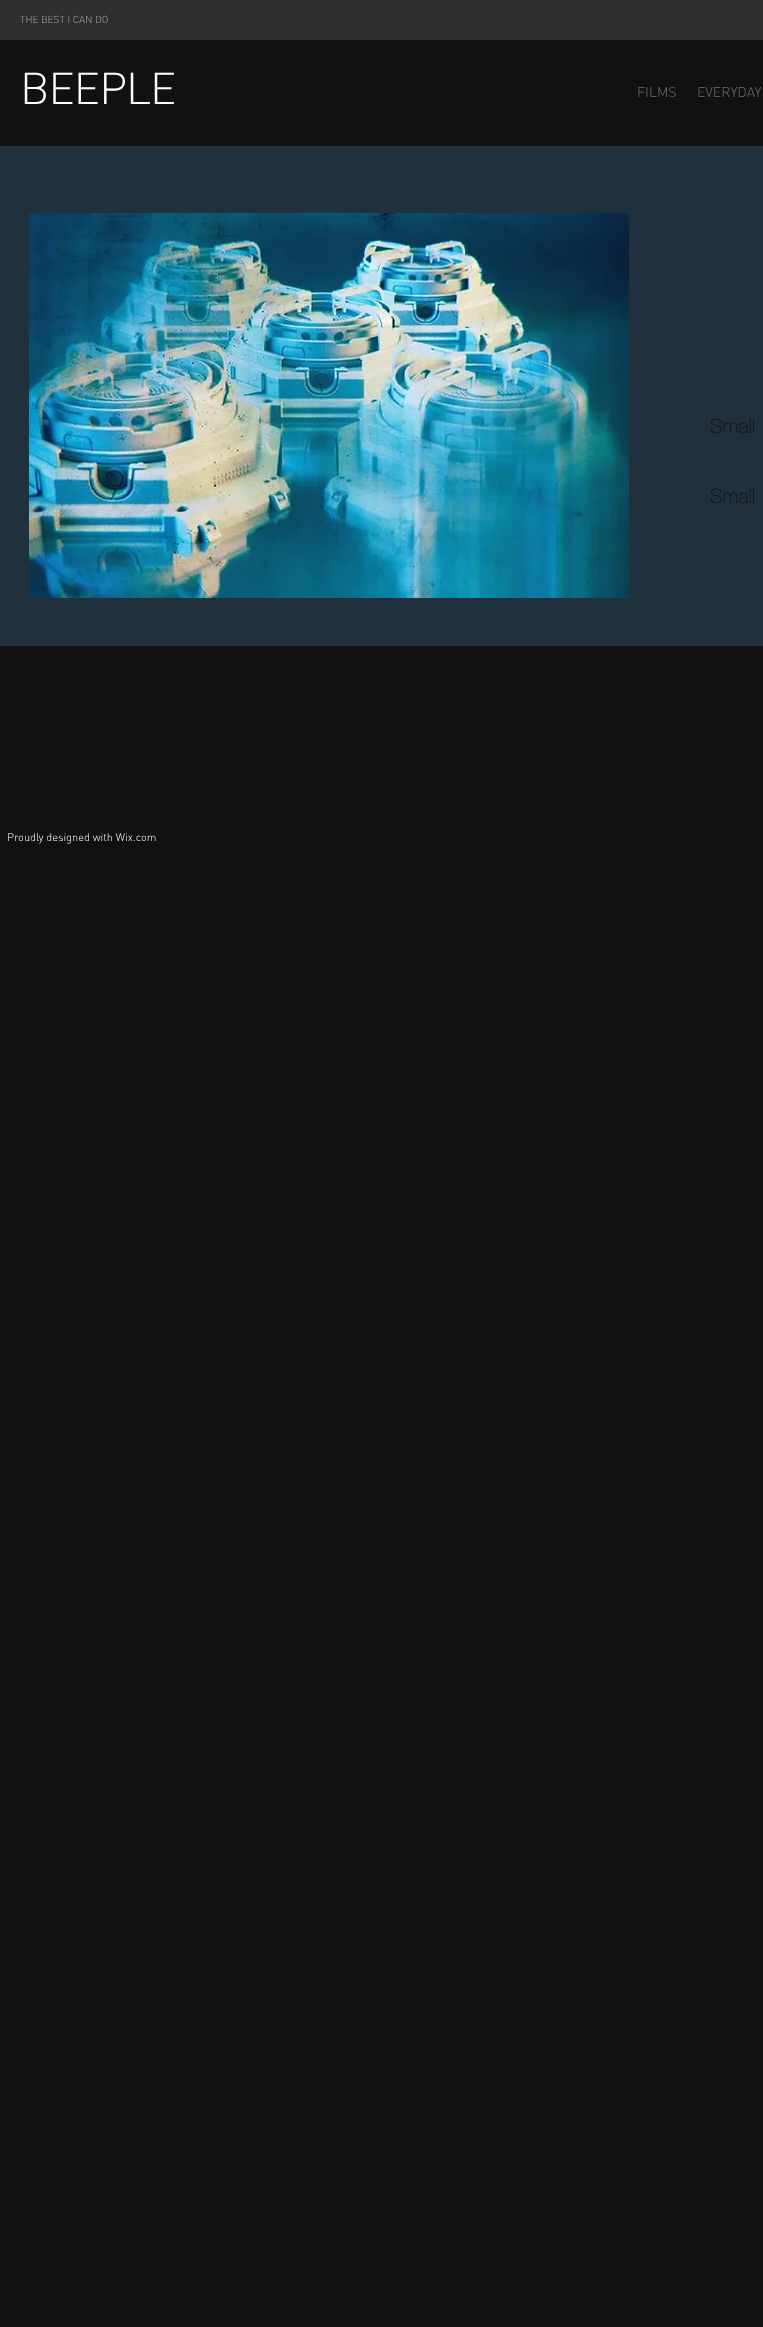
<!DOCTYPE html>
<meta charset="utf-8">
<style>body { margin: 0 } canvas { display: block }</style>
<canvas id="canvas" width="763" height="2327"></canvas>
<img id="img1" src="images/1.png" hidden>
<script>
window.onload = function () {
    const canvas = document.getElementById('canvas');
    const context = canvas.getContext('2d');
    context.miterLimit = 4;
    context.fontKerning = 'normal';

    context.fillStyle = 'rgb(17, 17, 17)';
    context.fillRect(0, 0, 763, 2327);
    context.fillStyle = 'rgb(47, 46, 46)';
    context.fillRect(0, 0, 763, 40);
    context.fillStyle = 'rgb(32, 48, 60)';
    context.fillRect(0, 146, 763, 500);
    context.drawImage(document.getElementById('img1'), 29, 213, 600, 385);
    context.font = '300 10px DIN';
    context.fillStyle = 'rgb(163, 171, 176)';
    context.fillText('THE BEST I CAN DO', 20, 23);
    context.letterSpacing = '-1px';
    context.font = '300 44px DIN';
    context.fillStyle = 'rgb(255, 255, 255)';
    context.fillText('BEEPLE', 20, 104);
    context.letterSpacing = '0px';
    context.font = '300 14px DIN';
    context.fillStyle = 'rgb(102, 115, 124)';
    context.fillText('FILMS', 637, 97);
    context.fillText('EVERYDAY', 697, 97);
    context.font = '100 20px "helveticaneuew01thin"';
    context.fillStyle = 'rgb(17, 17, 17)';
    context.fillText('Small', 710, 433);
    context.fillText('Small', 710, 503);
    context.font = '300 11px DIN';
    context.fillStyle = 'rgb(255, 255, 255)';
    context.fillText('Proudly designed with Wix.com', 7, 841);
};
</script>
